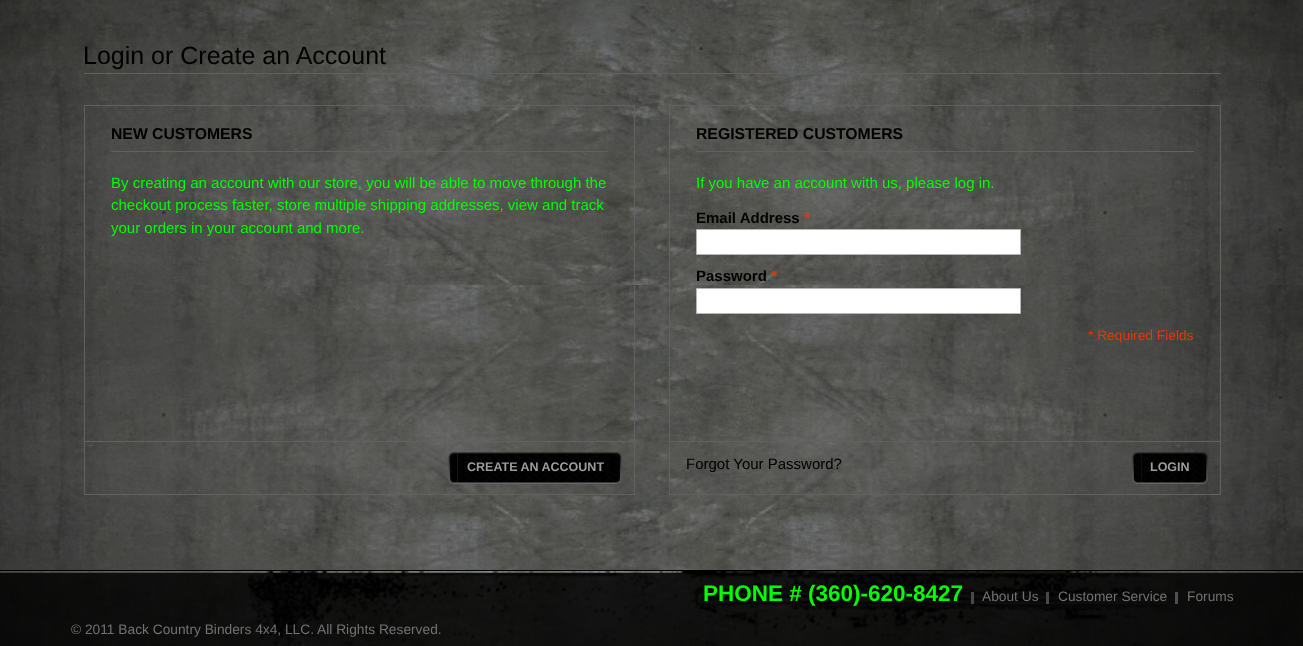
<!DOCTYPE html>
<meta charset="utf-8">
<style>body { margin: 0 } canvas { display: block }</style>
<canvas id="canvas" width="1303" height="646"></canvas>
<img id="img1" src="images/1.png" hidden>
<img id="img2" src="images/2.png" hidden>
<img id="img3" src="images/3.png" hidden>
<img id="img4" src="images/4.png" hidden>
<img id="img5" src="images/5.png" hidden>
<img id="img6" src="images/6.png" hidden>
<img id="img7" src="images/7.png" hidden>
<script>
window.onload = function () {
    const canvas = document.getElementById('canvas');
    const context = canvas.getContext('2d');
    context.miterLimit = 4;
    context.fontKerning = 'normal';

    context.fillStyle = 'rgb(255, 255, 255)';
    context.fillRect(0, 0, 1303, 646);
    context.drawImage(document.getElementById('img1'), 0, 285, 1303, 285);
    context.drawImage(document.getElementById('img2'), 0, 0, 1303, 285);
    context.fillStyle = 'rgb(97, 97, 95)';
    context.fillRect(84, 73, 1137, 1);
    context.fillRect(84, 105, 551, 1);
    context.fillRect(634, 105, 1, 336);
    context.fillRect(84, 105, 1, 336);
    context.fillRect(111, 151, 497, 1);
    context.fillRect(669, 105, 552, 1);
    context.fillRect(1220, 105, 1, 336);
    context.fillRect(669, 105, 1, 336);
    context.fillRect(696, 151, 498, 1);
    context.fillStyle = 'rgb(255, 255, 255)';
    context.beginPath();
    context.rect(696.5, 229.5, 324, 25);
    context.fill();
    context.strokeStyle = 'rgb(182, 182, 182)';
    context.stroke();
    context.beginPath();
    context.rect(696.5, 288.5, 324, 25);
    context.fill();
    context.stroke();
    context.strokeStyle = 'rgb(97, 97, 95)';
    context.strokeRect(84.5, 441.5, 550, 53);
    context.drawImage(document.getElementById('img3'), 448, 452, 10, 32);
    context.drawImage(document.getElementById('img4'), 457, 452, 165, 32);
    context.strokeRect(669.5, 441.5, 551, 53);
    context.drawImage(document.getElementById('img5'), 1132, 452, 10, 32);
    context.drawImage(document.getElementById('img6'), 1141, 452, 67, 32);
    context.drawImage(document.getElementById('img7'), 0, 570, 1303, 76);
    context.fillStyle = 'rgb(73, 73, 73)';
    context.fillRect(971, 592, 3, 12);
    context.fillRect(1046, 592, 3, 12);
    context.fillStyle = 'rgb(79, 79, 79)';
    context.fillRect(1175, 592, 3, 12);
    context.font = '25px Liberation Sans';
    context.fillStyle = 'rgb(1, 1, 0)';
    context.fillText('Login or Create an Account', 83, 64);
    context.font = 'bold 15.75px Liberation Sans';
    context.fillText('NEW CUSTOMERS', 111, 139);
    context.font = '15px Liberation Sans';
    context.fillStyle = 'rgb(0, 255, 0)';
    context.fillText('By creating an account with our store, you will be able to move through the', 111, 188);
    context.fillText('checkout process faster, store multiple shipping addresses, view and track', 111, 210);
    context.fillText('your orders in your account and more.', 111, 233);
    context.font = 'bold 15.75px Liberation Sans';
    context.fillStyle = 'rgb(1, 1, 0)';
    context.fillText('REGISTERED CUSTOMERS', 696, 139);
    context.font = '15px Liberation Sans';
    context.fillStyle = 'rgb(0, 255, 0)';
    context.fillText('If you have an account with us, please log in.', 696, 188);
    context.font = 'bold 15px Liberation Sans';
    context.fillStyle = 'rgb(1, 1, 0)';
    context.fillText('Email Address', 696, 223);
    context.fillStyle = 'rgb(235, 52, 10)';
    context.fillText('*', 804, 223);
    context.fillStyle = 'rgb(1, 1, 0)';
    context.fillText('Password', 696, 281);
    context.fillStyle = 'rgb(235, 52, 10)';
    context.fillText('*', 771, 281);
    context.font = '13.75px Liberation Sans';
    context.fillText('* Required Fields', 1088, 340);
    context.font = 'bold 12.5px Liberation Sans';
    context.fillStyle = 'rgb(156, 156, 156)';
    context.fillText('CREATE AN ACCOUNT', 467, 471);
    context.font = '15px Liberation Sans';
    context.fillStyle = 'rgb(1, 1, 0)';
    context.fillText('Forgot Your Password?', 686, 469);
    context.font = 'bold 12.5px Liberation Sans';
    context.fillStyle = 'rgb(156, 156, 156)';
    context.fillText('LOGIN', 1150, 471);
    context.font = 'bold 22.5px Liberation Sans';
    context.fillStyle = 'rgb(0, 255, 0)';
    context.fillText('PHONE # (360)-620-8427', 703, 601);
    context.font = '13.75px Liberation Sans';
    context.fillStyle = 'rgb(114, 114, 114)';
    context.fillText('About Us', 982, 601);
    context.fillText('Customer Service', 1058, 601);
    context.fillText('Forums', 1187, 601);
    context.fillText('© 2011 Back Country Binders 4x4, LLC. All Rights Reserved.', 71, 634);
};
</script>
